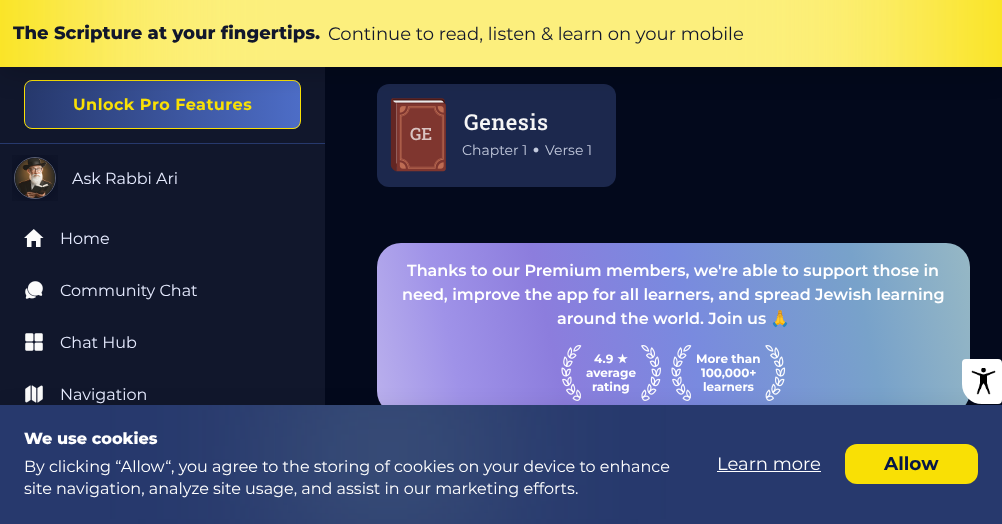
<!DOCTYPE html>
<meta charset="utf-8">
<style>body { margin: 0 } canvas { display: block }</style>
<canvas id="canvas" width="1002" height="524"></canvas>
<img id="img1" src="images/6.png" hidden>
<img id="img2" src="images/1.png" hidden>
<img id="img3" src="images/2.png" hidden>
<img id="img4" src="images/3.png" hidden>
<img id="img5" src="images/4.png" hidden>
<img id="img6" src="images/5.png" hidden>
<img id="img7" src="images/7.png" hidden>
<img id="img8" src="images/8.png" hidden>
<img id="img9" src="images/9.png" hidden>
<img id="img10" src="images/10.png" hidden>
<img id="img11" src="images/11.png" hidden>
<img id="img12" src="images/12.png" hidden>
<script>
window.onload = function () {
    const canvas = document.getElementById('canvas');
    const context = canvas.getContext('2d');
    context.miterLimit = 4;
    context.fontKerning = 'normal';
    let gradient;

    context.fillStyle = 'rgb(3, 9, 28)';
    context.fillRect(0, 0, 1002, 524);
    context.fillStyle = 'rgb(17, 23, 44)';
    context.fillRect(0, 67, 325, 338);
    context.save();
    context.beginPath();
    context.roundRect(24, 80, 277, 49, 8);
    context.clip();
    gradient = context.createLinearGradient(25, 105, 300, 104);
    gradient.addColorStop(0, 'rgb(39, 57, 109)');
    gradient.addColorStop(1, 'rgb(77, 109, 199)');
    context.fillStyle = gradient;
    context.fillRect(25, 80, 275, 49);
    context.restore();
    context.beginPath();
    context.roundRect(24.5, 80.5, 276, 48, 7.5);
    context.strokeStyle = 'rgb(249, 224, 5)';
    context.stroke();
    context.fillStyle = 'rgb(28, 40, 77)';
    context.beginPath();
    context.roundRect(377, 84, 239, 103, 12);
    context.fill();
    context.drawImage(document.getElementById('img1'), 390, 98, 56, 74);
    context.fillStyle = 'rgba(0, 0, 0, 0.16)';
    context.filter = 'blur(12px)';
    context.beginPath();
    context.rect(0, 8, 1002, 67);
    context.fill();
    context.filter = 'none';
    context.fillStyle = 'rgb(249, 224, 5)';
    context.fillRect(0, 0, 1002, 67);
    context.fillStyle = 'rgb(39, 57, 109)';
    context.fillRect(0, 143, 325, 1);
    context.beginPath();
    context.arc(35, 178, 20.5, 0, 2 * Math.PI);
    context.strokeStyle = 'rgb(133, 138, 160)';
    context.stroke();
    context.drawImage(document.getElementById('img2'), 12, 155, 46, 46);
    context.drawImage(document.getElementById('img3'), 24, 229, 20, 18);
    context.drawImage(document.getElementById('img4'), 25, 281, 18, 18);
    context.drawImage(document.getElementById('img5'), 25, 333, 18, 18);
    context.drawImage(document.getElementById('img6'), 25, 385, 18, 18);
    context.drawImage(document.getElementById('img7'), 533, 147, 6, 6);
    gradient = context.createLinearGradient(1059, 247, 316, 405);
    gradient.addColorStop(0, 'rgb(113, 161, 183)');
    gradient.addColorStop(0.12, 'rgb(149, 183, 197)');
    gradient.addColorStop(0.27, 'rgb(120, 162, 202)');
    gradient.addColorStop(0.5, 'rgb(121, 138, 223)');
    gradient.addColorStop(0.68, 'rgb(140, 125, 221)');
    gradient.addColorStop(0.81, 'rgb(159, 146, 232)');
    gradient.addColorStop(1, 'rgb(204, 196, 240)');
    context.fillStyle = gradient;
    context.beginPath();
    context.roundRect(377, 243, 593, 172, 24);
    context.fill();
    context.drawImage(document.getElementById('img8'), 561, 345, 21, 56);
    context.drawImage(document.getElementById('img9'), 641, 345, 20, 56);
    context.drawImage(document.getElementById('img10'), 671, 345, 21, 56);
    context.drawImage(document.getElementById('img11'), 765, 345, 21, 56);
    context.save();
    context.beginPath();
    context.rect(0, 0, 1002, 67);
    context.clip();
    context.fillStyle = 'rgb(252, 239, 125)';
    context.filter = 'blur(93px)';
    context.beginPath();
    context.rect(50, -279, 902, 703);
    context.fill();
    context.filter = 'none';
    context.restore();
    context.fillStyle = 'rgba(0, 0, 0, 0.16)';
    context.filter = 'blur(12px)';
    context.beginPath();
    context.rect(0, 413, 1002, 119);
    context.fill();
    context.filter = 'none';
    context.fillStyle = 'rgb(39, 57, 109)';
    context.fillRect(0, 405, 1002, 119);
    context.save();
    context.beginPath();
    context.rect(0, 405, 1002, 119);
    context.clip();
    context.fillStyle = 'rgba(198, 237, 202, 0.26)';
    context.filter = 'blur(93px)';
    context.beginPath();
    context.rect(310, 374, 156, 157);
    context.fill();
    context.filter = 'none';
    context.restore();
    context.fillStyle = 'rgb(255, 255, 255)';
    context.fillRect(717, 471, 104, 1);
    context.fillStyle = 'rgb(249, 224, 5)';
    context.beginPath();
    context.roundRect(845, 444, 133, 40, 12);
    context.fill();
    context.fillStyle = 'rgb(255, 255, 255)';
    context.beginPath();
    context.roundRect(963, 360, 38, 43, [3, 3, 3, 19]);
    context.fill();
    context.strokeStyle = 'rgb(255, 255, 255)';
    context.lineWidth = 2;
    context.stroke();
    context.drawImage(document.getElementById('img12'), 971, 368, 25, 27);
    context.font = '800 18px Montserrat';
    context.fillStyle = 'rgb(17, 23, 44)';
    context.fillText('The Scripture at your fingertips.', 13, 39);
    context.font = '18px Montserrat';
    context.fillText('Continue to read, listen & learn on your mobile', 328, 40);
    context.letterSpacing = '0.5px';
    context.font = 'bold 16px Montserrat';
    context.fillStyle = 'rgb(249, 224, 5)';
    context.fillText('Unlock Pro Features', 73, 110);
    context.letterSpacing = '0px';
    context.font = '16px Montserrat';
    context.fillStyle = 'rgb(230, 235, 255)';
    context.fillText('Ask Rabbi Ari', 72, 184);
    context.fillText('Home', 60, 244);
    context.fillText('Community Chat', 60, 296);
    context.fillText('Chat Hub', 60, 348);
    context.fillText('Navigation', 60, 400);
    context.font = '500 17px Roboto Slab';
    context.fillStyle = 'rgb(217, 195, 193)';
    context.fillText('GE', 410, 140);
    context.letterSpacing = '0.5px';
    context.font = '500 22px Roboto Slab';
    context.fillStyle = 'rgb(246, 246, 246)';
    context.fillText('Genesis', 464, 130);
    context.letterSpacing = '0px';
    context.font = '14px Montserrat';
    context.fillStyle = 'rgb(195, 202, 221)';
    context.fillText('Chapter 1', 462, 155);
    context.fillText('Verse 1', 545, 155);
    context.font = '600 16px Montserrat';
    context.fillStyle = 'rgb(255, 255, 255)';
    context.fillText('Thanks to our Premium members, we\'re able to support those in', 407, 276);
    context.fillText('need, improve the app for all learners, and spread Jewish learning', 402, 300);
    context.fillText('around the world. Join us', 557, 324);
    context.font = 'bold 16px Noto Color Emoji';
    context.fillText('🙏', 770, 324);
    context.font = 'bold 12px Montserrat';
    context.fillText('4.9', 594, 363);
    context.font = 'bold 12px DejaVu Sans';
    context.fillText('★', 617, 363);
    context.font = 'bold 12px Montserrat';
    context.fillText('average', 586, 377);
    context.fillText('rating', 592, 391);
    context.fillText('More than', 696, 363);
    context.fillText('100,000+', 701, 377);
    context.fillText('learners', 703, 391);
    context.font = '800 16px Montserrat';
    context.fillText('We use cookies', 24, 444);
    context.font = '16px Montserrat';
    context.fillText('By clicking “Allow“, you agree to the storing of cookies on your device to enhance', 24, 472);
    context.fillText('site navigation, analyze site usage, and assist in our marketing efforts.', 24, 494);
    context.font = '18px Montserrat';
    context.fillText('Learn more', 717, 470);
    context.font = 'bold 18.5px Montserrat';
    context.fillStyle = 'rgb(7, 23, 71)';
    context.fillText('Allow', 884, 470);
};
</script>
